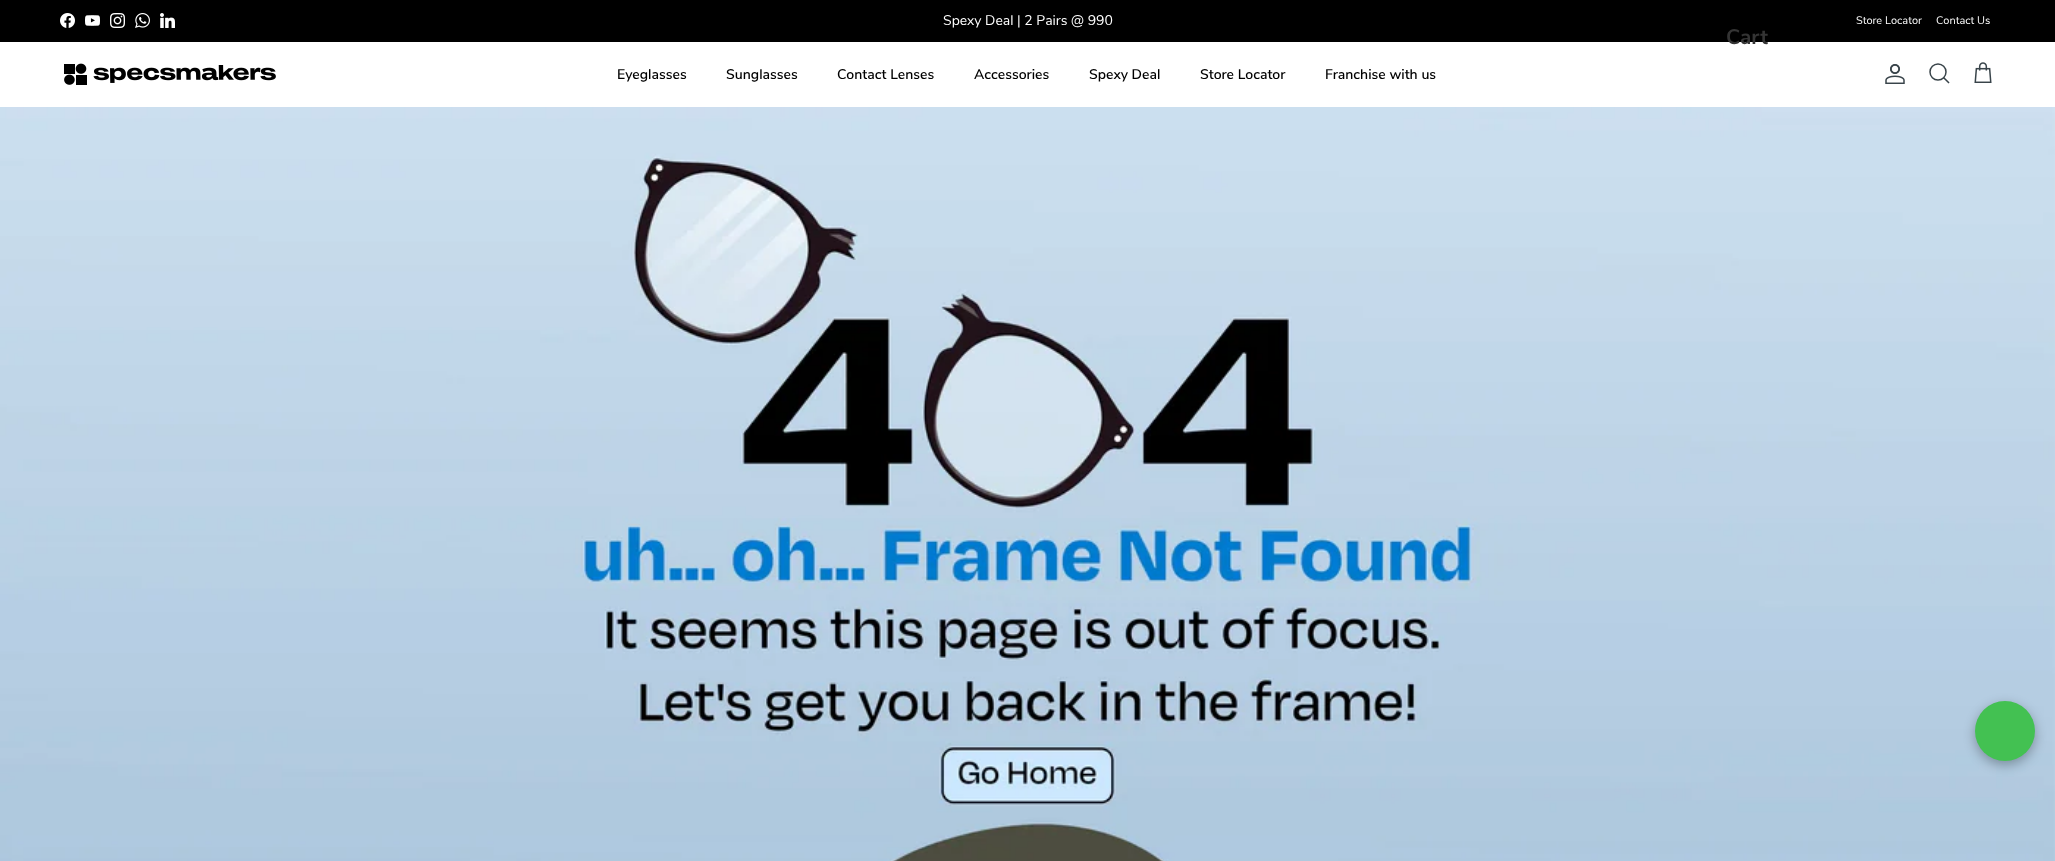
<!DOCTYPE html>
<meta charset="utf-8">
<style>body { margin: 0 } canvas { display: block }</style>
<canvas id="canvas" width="2055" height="861"></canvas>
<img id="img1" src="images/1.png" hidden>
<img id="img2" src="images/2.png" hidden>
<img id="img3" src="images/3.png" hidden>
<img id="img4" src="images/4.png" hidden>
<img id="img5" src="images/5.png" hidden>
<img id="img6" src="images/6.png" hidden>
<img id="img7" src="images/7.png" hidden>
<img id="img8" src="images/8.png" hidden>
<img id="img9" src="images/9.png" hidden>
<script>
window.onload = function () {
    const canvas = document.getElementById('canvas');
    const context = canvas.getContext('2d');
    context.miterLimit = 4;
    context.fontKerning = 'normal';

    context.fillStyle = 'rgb(255, 255, 255)';
    context.fillRect(0, 0, 2055, 861);
    context.fillStyle = 'rgb(0, 0, 0)';
    context.fillRect(0, 0, 2055, 42);
    context.drawImage(document.getElementById('img1'), 60, 13, 15, 15);
    context.drawImage(document.getElementById('img2'), 85, 15, 15, 11);
    context.drawImage(document.getElementById('img3'), 110, 13, 15, 15);
    context.drawImage(document.getElementById('img4'), 135, 13, 15, 15);
    context.drawImage(document.getElementById('img5'), 160, 13, 15, 15);
    context.drawImage(document.getElementById('img6'), 64, 63, 212, 22);
    context.drawImage(document.getElementById('img7'), 1885, 64, 20, 20);
    context.beginPath();
    context.arc(1938, 72, 8, 0, 2 * Math.PI);
    context.strokeStyle = 'rgb(57, 68, 74)';
    context.lineWidth = 1.5;
    context.stroke();
    context.beginPath();
    context.moveTo(1944, 78);
    context.lineTo(1948.5, 82.5);
    context.lineCap = 'square';
    context.stroke();
    context.drawImage(document.getElementById('img8'), 1974, 62, 18, 21);
    context.drawImage(document.getElementById('img9'), 0, 107, 2055, 754);
    context.fillStyle = 'rgba(0, 0, 0, 0.3)';
    context.filter = 'blur(6px)';
    context.beginPath();
    context.roundRect(1975, 705, 60, 60, 30);
    context.fill();
    context.filter = 'none';
    context.fillStyle = 'rgb(67, 193, 82)';
    context.beginPath();
    context.arc(2005, 731, 30, 0, 2 * Math.PI);
    context.fill();
    context.font = '14px Nunito Sans';
    context.fillStyle = 'rgb(255, 255, 255)';
    context.fillText('Spexy Deal | 2 Pairs @ 990', 943, 25);
    context.font = '11px Nunito Sans';
    context.fillText('Store Locator', 1856, 24);
    context.fillText('Contact Us', 1936, 24);
    context.font = 'bold 21px Nunito Sans';
    context.fillStyle = 'rgb(52, 52, 52)';
    context.fillText('Cart', 1726, 44);
    context.font = '600 14px Nunito Sans';
    context.fillStyle = 'rgb(0, 0, 0)';
    context.fillText('Eyeglasses', 617, 79);
    context.fillText('Sunglasses', 726, 79);
    context.fillText('Contact Lenses', 837, 79);
    context.fillText('Accessories', 974, 79);
    context.fillText('Spexy Deal', 1089, 79);
    context.fillText('Store Locator', 1200, 79);
    context.fillText('Franchise with us', 1325, 79);
};
</script>
